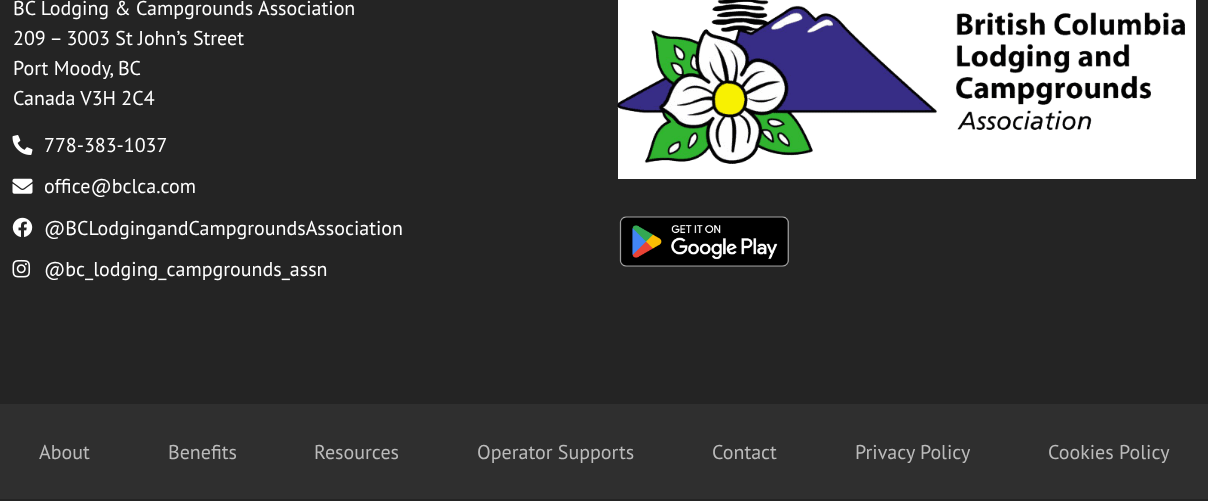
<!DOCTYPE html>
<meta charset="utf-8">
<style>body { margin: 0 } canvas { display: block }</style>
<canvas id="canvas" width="1208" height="501"></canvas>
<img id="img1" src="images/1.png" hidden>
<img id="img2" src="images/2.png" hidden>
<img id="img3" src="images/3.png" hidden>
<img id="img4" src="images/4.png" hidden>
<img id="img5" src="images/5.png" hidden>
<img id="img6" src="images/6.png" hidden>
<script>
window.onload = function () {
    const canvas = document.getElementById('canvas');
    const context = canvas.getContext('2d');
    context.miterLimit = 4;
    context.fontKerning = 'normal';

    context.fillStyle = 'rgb(36, 36, 36)';
    context.fillRect(0, 0, 1208, 501);
    context.drawImage(document.getElementById('img1'), 12, 135, 21, 20);
    context.drawImage(document.getElementById('img2'), 12, 178, 21, 16);
    context.drawImage(document.getElementById('img3'), 12, 217, 21, 20);
    context.drawImage(document.getElementById('img4'), 12, 259, 19, 19);
    context.fillStyle = 'rgb(255, 255, 255)';
    context.fillRect(618, 0, 578, 179);
    context.drawImage(document.getElementById('img5'), 617, 0, 569, 164);
    context.drawImage(document.getElementById('img6'), 619, 216, 170, 51);
    context.fillStyle = 'rgb(47, 47, 47)';
    context.fillRect(0, 404, 1208, 95);
    context.font = '20px PT Sans';
    context.fillStyle = 'rgb(255, 255, 255)';
    context.fillText('BC Lodging & Campgrounds Association', 13, 15);
    context.fillText('209 – 3003 St John’s Street', 13, 45);
    context.fillText('Port Moody, BC', 13, 75);
    context.fillText('Canada V3H 2C4', 13, 105);
    context.fillText('778-383-1037', 44, 152);
    context.fillText('office@bclca.com', 44, 193);
    context.fillText('@BCLodgingandCampgroundsAssociation', 44, 235);
    context.fillText('@bc_lodging_campgrounds_assn', 44, 276);
    context.fillStyle = 'rgb(187, 187, 187)';
    context.fillText('About', 39, 459);
    context.fillText('Benefits', 168, 459);
    context.fillText('Resources', 314, 459);
    context.fillText('Operator Supports', 477, 459);
    context.fillText('Contact', 712, 459);
    context.fillText('Privacy Policy', 855, 459);
    context.fillText('Cookies Policy', 1048, 459);
};
</script>
